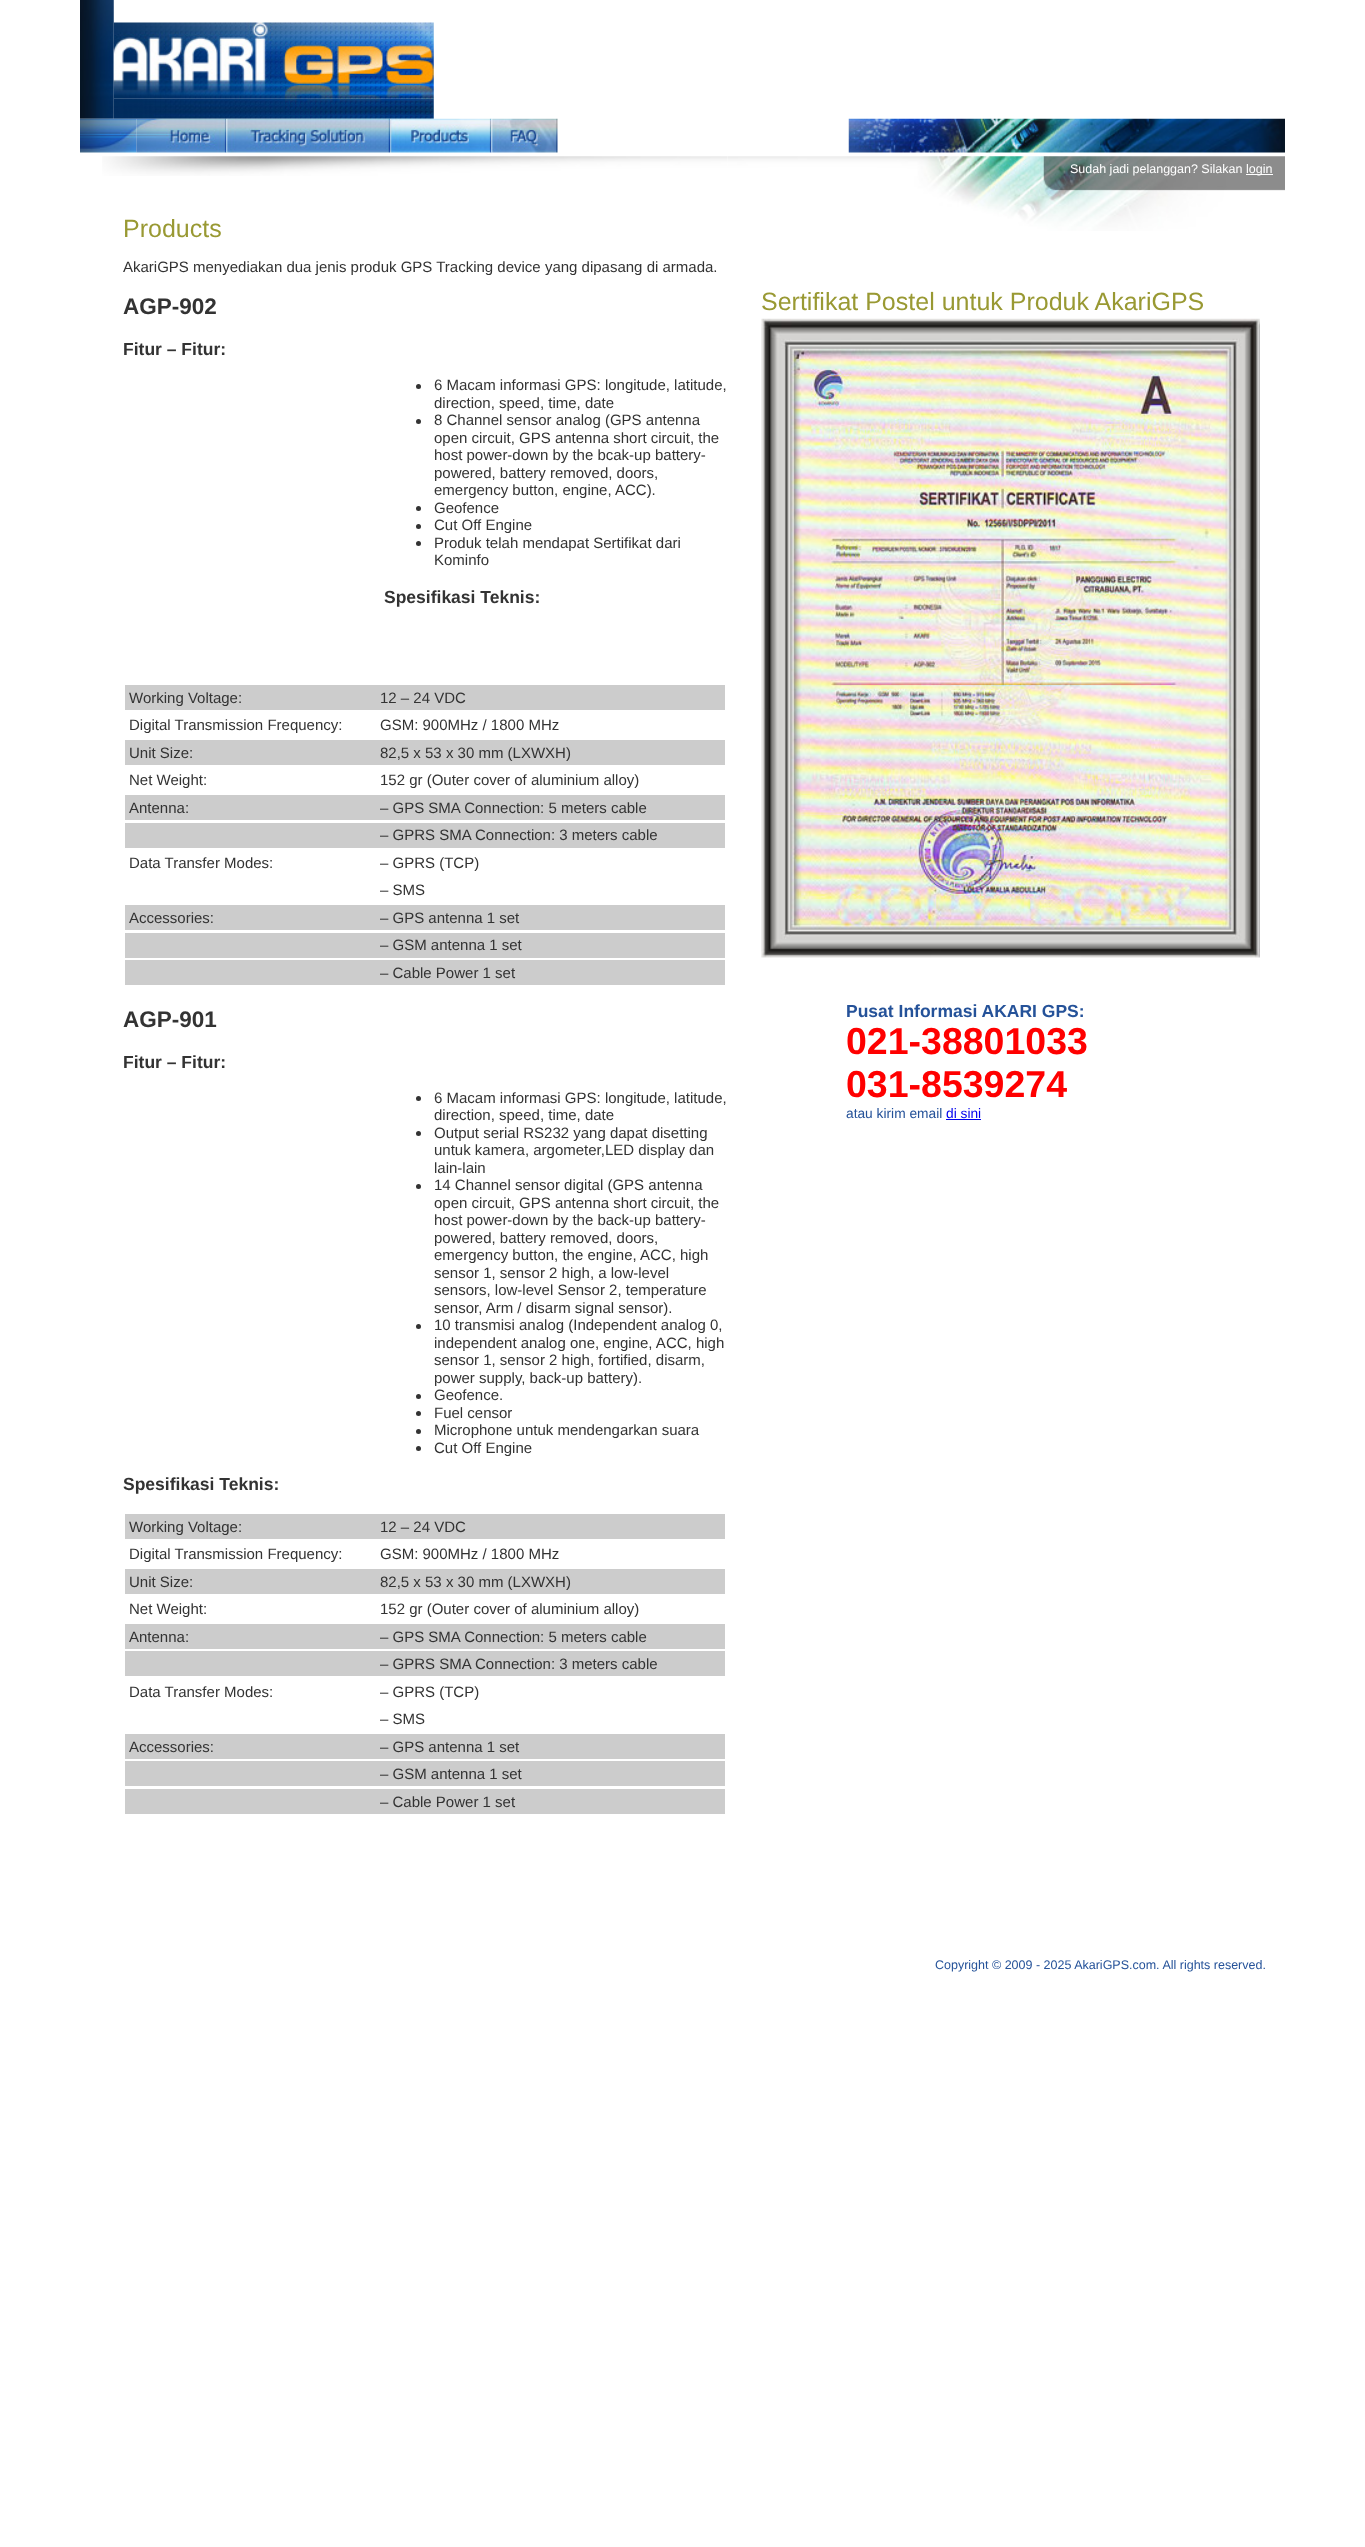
<!DOCTYPE html>
<meta charset="utf-8">
<style>body { margin: 0 } canvas { display: block }</style>
<canvas id="canvas" width="1365" height="2547"></canvas>
<img id="img1" src="images/1.png" hidden>
<img id="img2" src="images/3.png" hidden>
<img id="img3" src="images/2.png" hidden>
<img id="img4" src="images/4.png" hidden>
<img id="img5" src="images/5.png" hidden>
<img id="img6" src="images/6.png" hidden>
<img id="img7" src="images/7.png" hidden>
<img id="img8" src="images/8.png" hidden>
<img id="img9" src="images/9.png" hidden>
<img id="img10" src="images/10.png" hidden>
<img id="img11" src="images/11.png" hidden>
<img id="img12" src="images/12.png" hidden>
<script>
window.onload = function () {
    const canvas = document.getElementById('canvas');
    const context = canvas.getContext('2d');
    context.miterLimit = 4;
    context.fontKerning = 'normal';

    context.fillStyle = 'rgb(255, 255, 255)';
    context.fillRect(0, 0, 1365, 2547);
    context.drawImage(document.getElementById('img1'), 80, 0, 34, 119);
    context.drawImage(document.getElementById('img2'), 113, 98, 321, 21);
    context.drawImage(document.getElementById('img3'), 113, 22, 321, 77);
    context.drawImage(document.getElementById('img4'), 80, 118, 57, 35);
    context.drawImage(document.getElementById('img5'), 136, 118, 91, 35);
    context.drawImage(document.getElementById('img6'), 226, 118, 164, 35);
    context.drawImage(document.getElementById('img7'), 390, 118, 102, 35);
    context.drawImage(document.getElementById('img8'), 491, 118, 67, 35);
    context.drawImage(document.getElementById('img9'), 848, 118, 437, 35);
    context.drawImage(document.getElementById('img10'), 102, 156, 626, 20);
    context.fillStyle = 'rgb(51, 51, 51)';
    context.beginPath();
    context.arc(418.5, 386.5, 2.5, 0, 2 * Math.PI);
    context.fill();
    context.beginPath();
    context.arc(418.5, 421.5, 2.5, 0, 2 * Math.PI);
    context.fill();
    context.beginPath();
    context.arc(418.5, 508.5, 2.5, 0, 2 * Math.PI);
    context.fill();
    context.beginPath();
    context.arc(418.5, 526.5, 2.5, 0, 2 * Math.PI);
    context.fill();
    context.beginPath();
    context.arc(418.5, 543.5, 2.5, 0, 2 * Math.PI);
    context.fill();
    context.fillStyle = 'rgb(204, 204, 204)';
    context.fillRect(125, 685, 600, 25);
    context.fillRect(125, 740, 600, 25);
    context.fillRect(125, 795, 600, 25);
    context.fillRect(125, 823, 600, 25);
    context.fillRect(125, 905, 600, 25);
    context.fillRect(125, 933, 600, 25);
    context.fillRect(125, 960, 600, 25);
    context.fillStyle = 'rgb(51, 51, 51)';
    context.beginPath();
    context.arc(418.5, 1098.5, 2.5, 0, 2 * Math.PI);
    context.fill();
    context.beginPath();
    context.arc(418.5, 1133.5, 2.5, 0, 2 * Math.PI);
    context.fill();
    context.beginPath();
    context.arc(418.5, 1186.5, 2.5, 0, 2 * Math.PI);
    context.fill();
    context.beginPath();
    context.arc(418.5, 1326.5, 2.5, 0, 2 * Math.PI);
    context.fill();
    context.beginPath();
    context.arc(418.5, 1396.5, 2.5, 0, 2 * Math.PI);
    context.fill();
    context.beginPath();
    context.arc(418.5, 1413.5, 2.5, 0, 2 * Math.PI);
    context.fill();
    context.beginPath();
    context.arc(418.5, 1431.5, 2.5, 0, 2 * Math.PI);
    context.fill();
    context.beginPath();
    context.arc(418.5, 1448.5, 2.5, 0, 2 * Math.PI);
    context.fill();
    context.fillStyle = 'rgb(204, 204, 204)';
    context.fillRect(125, 1514, 600, 25);
    context.fillRect(125, 1569, 600, 25);
    context.fillRect(125, 1624, 600, 25);
    context.fillRect(125, 1651, 600, 25);
    context.fillRect(125, 1734, 600, 25);
    context.fillRect(125, 1761, 600, 25);
    context.fillRect(125, 1789, 600, 25);
    context.drawImage(document.getElementById('img11'), 727, 156, 558, 75);
    context.fillStyle = 'rgb(255, 255, 255)';
    context.fillRect(1246, 174, 27, 1);
    context.drawImage(document.getElementById('img12'), 761, 318, 499, 640);
    context.fillStyle = 'rgb(0, 0, 238)';
    context.fillRect(946, 1119, 35, 1);
    context.font = '25px Liberation Sans';
    context.fillStyle = 'rgb(153, 153, 51)';
    context.fillText('Products', 123, 237);
    context.font = '15px Liberation Sans';
    context.fillStyle = 'rgb(51, 51, 51)';
    context.fillText('AkariGPS menyediakan dua jenis produk GPS Tracking device yang dipasang di armada.', 123, 272);
    context.font = 'bold 22.5px Liberation Sans';
    context.fillText('AGP-902', 123, 314);
    context.font = 'bold 17.5px Liberation Sans';
    context.fillText('Fitur – Fitur:', 123, 355);
    context.font = '15px Liberation Sans';
    context.fillText('6 Macam informasi GPS: longitude, latitude,', 434, 390);
    context.fillText('direction, speed, time, date', 434, 408);
    context.fillText('8 Channel sensor analog (GPS antenna', 434, 425);
    context.fillText('open circuit, GPS antenna short circuit, the', 434, 443);
    context.fillText('host power-down by the bcak-up battery-', 434, 460);
    context.fillText('powered, battery removed, doors,', 434, 478);
    context.fillText('emergency button, engine, ACC).', 434, 495);
    context.fillText('Geofence', 434, 513);
    context.fillText('Cut Off Engine', 434, 530);
    context.fillText('Produk telah mendapat Sertifikat dari', 434, 548);
    context.fillText('Kominfo', 434, 565);
    context.font = 'bold 17.5px Liberation Sans';
    context.fillText('Spesifikasi Teknis:', 384, 603);
    context.font = '15px Liberation Sans';
    context.fillText('Working Voltage:', 129, 703);
    context.fillText('12 – 24 VDC', 380, 703);
    context.fillText('Digital Transmission Frequency:', 129, 730);
    context.fillText('GSM: 900MHz / 1800 MHz', 380, 730);
    context.fillText('Unit Size:', 129, 758);
    context.fillText('82,5 x 53 x 30 mm (LXWXH)', 380, 758);
    context.fillText('Net Weight:', 129, 785);
    context.fillText('152 gr (Outer cover of aluminium alloy)', 380, 785);
    context.fillText('Antenna:', 129, 813);
    context.fillText('– GPS SMA Connection: 5 meters cable', 380, 813);
    context.fillText('– GPRS SMA Connection: 3 meters cable', 380, 840);
    context.fillText('Data Transfer Modes:', 129, 868);
    context.fillText('– GPRS (TCP)', 380, 868);
    context.fillText('– SMS', 380, 895);
    context.fillText('Accessories:', 129, 923);
    context.fillText('– GPS antenna 1 set', 380, 923);
    context.fillText('– GSM antenna 1 set', 380, 950);
    context.fillText('– Cable Power 1 set', 380, 978);
    context.font = 'bold 22.5px Liberation Sans';
    context.fillText('AGP-901', 123, 1027);
    context.font = 'bold 17.5px Liberation Sans';
    context.fillText('Fitur – Fitur:', 123, 1068);
    context.font = '15px Liberation Sans';
    context.fillText('6 Macam informasi GPS: longitude, latitude,', 434, 1103);
    context.fillText('direction, speed, time, date', 434, 1120);
    context.fillText('Output serial RS232 yang dapat disetting', 434, 1138);
    context.fillText('untuk kamera, argometer,LED display dan', 434, 1155);
    context.fillText('lain-lain', 434, 1173);
    context.fillText('14 Channel sensor digital (GPS antenna', 434, 1190);
    context.fillText('open circuit, GPS antenna short circuit, the', 434, 1208);
    context.fillText('host power-down by the back-up battery-', 434, 1225);
    context.fillText('powered, battery removed, doors,', 434, 1243);
    context.fillText('emergency button, the engine, ACC, high', 434, 1260);
    context.fillText('sensor 1, sensor 2 high, a low-level', 434, 1278);
    context.fillText('sensors, low-level Sensor 2, temperature', 434, 1295);
    context.fillText('sensor, Arm / disarm signal sensor).', 434, 1313);
    context.fillText('10 transmisi analog (Independent analog 0,', 434, 1330);
    context.fillText('independent analog one, engine, ACC, high', 434, 1348);
    context.fillText('sensor 1, sensor 2 high, fortified, disarm,', 434, 1365);
    context.fillText('power supply, back-up battery).', 434, 1383);
    context.fillText('Geofence.', 434, 1400);
    context.fillText('Fuel censor', 434, 1418);
    context.fillText('Microphone untuk mendengarkan suara', 434, 1435);
    context.fillText('Cut Off Engine', 434, 1453);
    context.font = 'bold 17.5px Liberation Sans';
    context.fillText('Spesifikasi Teknis:', 123, 1490);
    context.font = '15px Liberation Sans';
    context.fillText('Working Voltage:', 129, 1532);
    context.fillText('12 – 24 VDC', 380, 1532);
    context.fillText('Digital Transmission Frequency:', 129, 1559);
    context.fillText('GSM: 900MHz / 1800 MHz', 380, 1559);
    context.fillText('Unit Size:', 129, 1587);
    context.fillText('82,5 x 53 x 30 mm (LXWXH)', 380, 1587);
    context.fillText('Net Weight:', 129, 1614);
    context.fillText('152 gr (Outer cover of aluminium alloy)', 380, 1614);
    context.fillText('Antenna:', 129, 1642);
    context.fillText('– GPS SMA Connection: 5 meters cable', 380, 1642);
    context.fillText('– GPRS SMA Connection: 3 meters cable', 380, 1669);
    context.fillText('Data Transfer Modes:', 129, 1697);
    context.fillText('– GPRS (TCP)', 380, 1697);
    context.fillText('– SMS', 380, 1724);
    context.fillText('Accessories:', 129, 1752);
    context.fillText('– GPS antenna 1 set', 380, 1752);
    context.fillText('– GSM antenna 1 set', 380, 1779);
    context.fillText('– Cable Power 1 set', 380, 1807);
    context.font = '12.5px Liberation Sans';
    context.fillStyle = 'rgb(255, 255, 255)';
    context.fillText('Sudah jadi pelanggan? Silakan', 1070, 173);
    context.fillText('login', 1246, 173);
    context.font = '25px Liberation Sans';
    context.fillStyle = 'rgb(153, 153, 51)';
    context.fillText('Sertifikat Postel untuk Produk AkariGPS', 761, 310);
    context.font = 'bold 17.5px Liberation Sans';
    context.fillStyle = 'rgb(37, 82, 153)';
    context.fillText('Pusat Informasi AKARI GPS:', 846, 1017);
    context.font = 'bold 37.5px Liberation Sans';
    context.fillStyle = 'rgb(255, 0, 0)';
    context.fillText('021-38801033', 846, 1054);
    context.fillText('031-8539274', 846, 1097);
    context.font = '13.75px Liberation Sans';
    context.fillStyle = 'rgb(37, 82, 153)';
    context.fillText('atau kirim email', 846, 1118);
    context.fillStyle = 'rgb(0, 0, 238)';
    context.fillText('di sini', 946, 1118);
    context.font = '12.5px Liberation Sans';
    context.fillStyle = 'rgb(37, 82, 153)';
    context.fillText('Copyright © 2009 - 2025 AkariGPS.com. All rights reserved.', 935, 1969);
};
</script>
